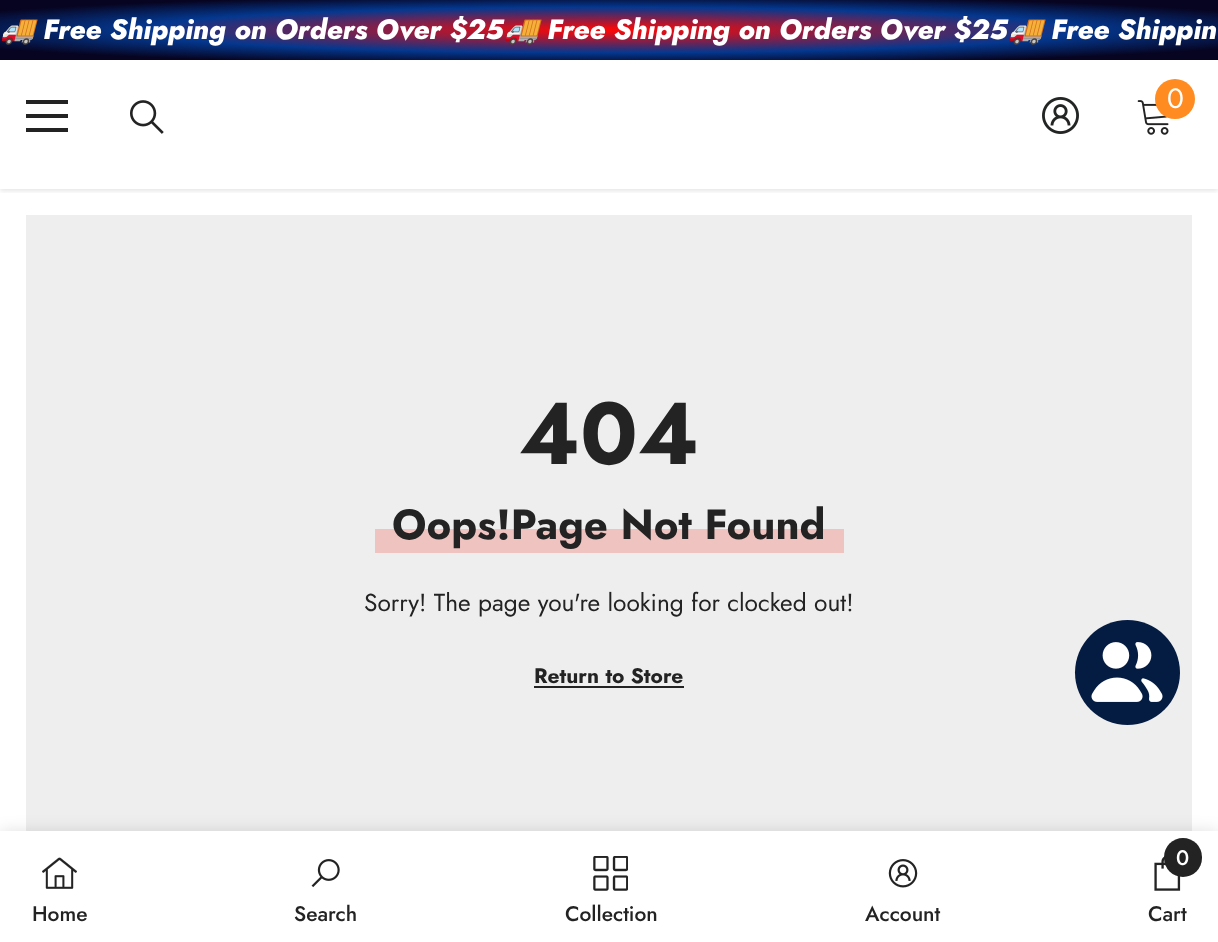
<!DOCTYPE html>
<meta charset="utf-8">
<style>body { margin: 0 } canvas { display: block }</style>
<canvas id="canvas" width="1218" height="942"></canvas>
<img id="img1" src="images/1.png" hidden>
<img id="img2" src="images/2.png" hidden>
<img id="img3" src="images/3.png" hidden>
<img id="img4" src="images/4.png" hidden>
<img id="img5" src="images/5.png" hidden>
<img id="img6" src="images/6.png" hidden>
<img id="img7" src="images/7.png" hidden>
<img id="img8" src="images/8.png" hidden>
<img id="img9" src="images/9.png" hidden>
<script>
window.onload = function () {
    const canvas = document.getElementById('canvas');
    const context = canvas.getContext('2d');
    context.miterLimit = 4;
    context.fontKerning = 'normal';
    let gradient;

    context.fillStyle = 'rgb(255, 255, 255)';
    context.fillRect(0, 0, 1218, 942);
    gradient = context.createRadialGradient(609, 615, 0, 609, 615, 861);
    gradient.addColorStop(0.03, 'rgb(247, 9, 9)');
    gradient.addColorStop(0.54, 'rgb(4, 56, 143)');
    gradient.addColorStop(0.84, 'rgb(7, 4, 33)');
    context.fillStyle = gradient;
    context.beginPath();
    context.rect(0, 0, 1218, 60);
    context.save();
    context.clip();
    context.scale(1, 42 / 861);
    context.fillRect(0, 0, 1218, 19311);
    context.restore();
    context.save();
    context.beginPath();
    context.rect(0, 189, 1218, 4);
    context.clip();
    context.fillStyle = 'rgba(0, 0, 0, 0.1)';
    context.filter = 'blur(2.5px)';
    context.beginPath();
    context.rect(0, 61, 1218, 130);
    context.fill();
    context.filter = 'none';
    context.restore();
    context.fillStyle = 'rgb(35, 35, 35)';
    context.fillRect(26, 114, 42, 4);
    context.fillRect(26, 100, 42, 4);
    context.fillRect(26, 128, 42, 4);
    context.drawImage(document.getElementById('img1'), 130, 100, 34, 34);
    context.drawImage(document.getElementById('img2'), 1042, 97, 37, 37);
    context.drawImage(document.getElementById('img3'), 1137, 100, 32, 35);
    context.fillStyle = 'rgb(255, 139, 33)';
    context.beginPath();
    context.arc(1175, 99, 20, 0, 2 * Math.PI);
    context.fill();
    context.fillStyle = 'rgb(238, 238, 238)';
    context.fillRect(26, 215, 1166, 616);
    context.fillStyle = 'rgb(239, 195, 192)';
    context.fillRect(375, 529, 469, 24);
    context.fillStyle = 'rgb(35, 35, 35)';
    context.fillRect(534, 686, 150, 2);
    context.fillStyle = 'rgba(0, 0, 0, 0.12)';
    context.filter = 'blur(8px)';
    context.beginPath();
    context.rect(0, 831, 1218, 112);
    context.fill();
    context.filter = 'none';
    context.fillStyle = 'rgb(255, 255, 255)';
    context.fillRect(0, 831, 1218, 111);
    context.drawImage(document.getElementById('img4'), 42, 857, 35, 32);
    context.drawImage(document.getElementById('img5'), 311, 859, 29, 29);
    context.drawImage(document.getElementById('img6'), 593, 856, 35, 35);
    context.drawImage(document.getElementById('img7'), 888, 859, 30, 29);
    context.drawImage(document.getElementById('img8'), 1154, 856, 27, 35);
    context.fillStyle = 'rgb(35, 35, 35)';
    context.beginPath();
    context.roundRect(1164, 838, 38, 39, 19);
    context.fill();
    context.fillStyle = 'rgb(5, 28, 66)';
    context.beginPath();
    context.arc(1127.5, 672.5, 52.5, 0, 2 * Math.PI);
    context.fill();
    context.drawImage(document.getElementById('img9'), 1091, 642, 72, 60);
    context.font = 'italic bold 28px Noto Color Emoji';
    context.fillStyle = 'rgb(255, 255, 255)';
    context.fillText('🚚', 0, 39);
    context.font = 'italic 800 28px Jost';
    context.fillText('Free Shipping on Orders Over $25', 43, 39);
    context.font = 'italic bold 28px Noto Color Emoji';
    context.fillText('🚚', 504, 39);
    context.font = 'italic 800 28px Jost';
    context.fillText('Free Shipping on Orders Over $25', 547, 39);
    context.font = 'italic bold 28px Noto Color Emoji';
    context.fillText('🚚', 1008, 39);
    context.font = 'italic 800 28px Jost';
    context.fillText('Free Shippin', 1051, 39);
    context.font = '28px Jost';
    context.fillText('0', 1167, 108);
    context.font = 'bold 87.5px Jost';
    context.fillStyle = 'rgb(35, 35, 35)';
    context.fillText('404', 519, 464);
    context.font = 'bold 42px Jost';
    context.fillText('Oops!Page Not Found', 392, 539);
    context.font = '24.5px Jost';
    context.fillText('Sorry! The page you\'re looking for clocked out!', 364, 611);
    context.font = 'bold 21px Jost';
    context.fillText('Return to Store', 534, 683);
    context.font = '500 21px Jost';
    context.fillText('Home', 32, 921);
    context.fillText('Search', 294, 921);
    context.fillText('Collection', 565, 921);
    context.fillText('Account', 865, 921);
    context.fillStyle = 'rgb(255, 255, 255)';
    context.fillText('0', 1176, 865);
    context.fillStyle = 'rgb(35, 35, 35)';
    context.fillText('Cart', 1148, 921);
};
</script>
